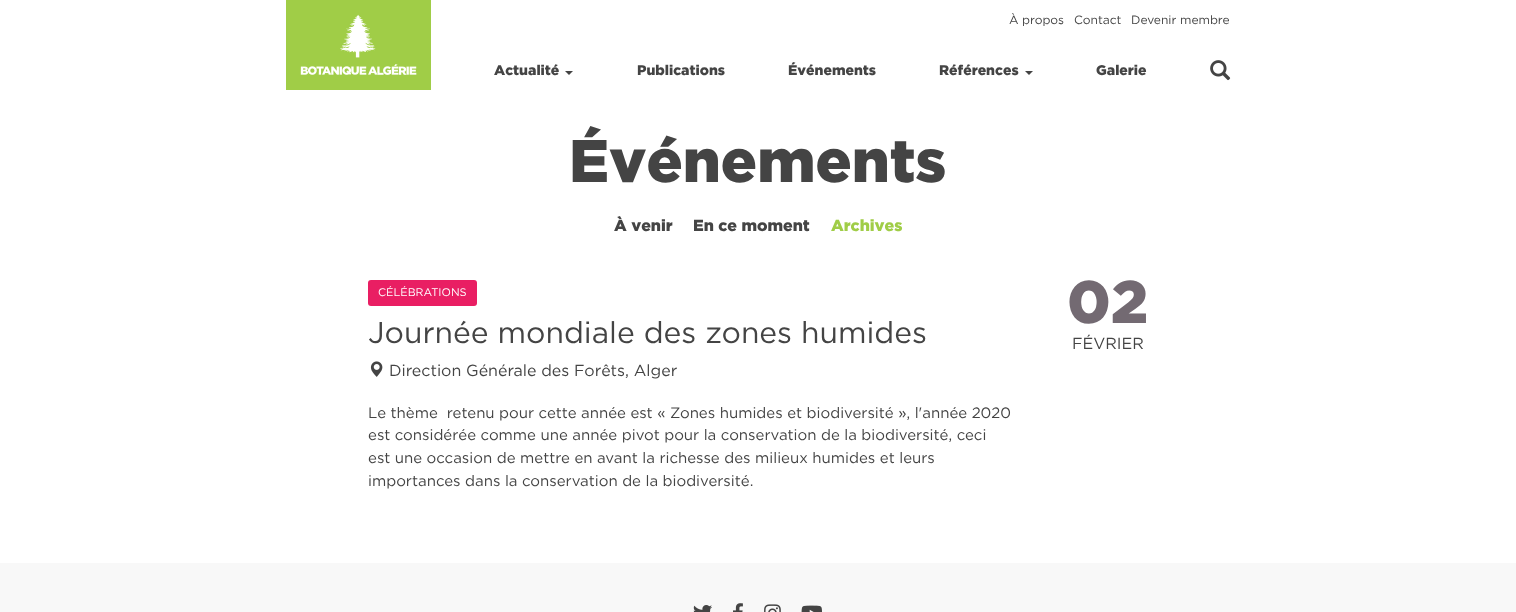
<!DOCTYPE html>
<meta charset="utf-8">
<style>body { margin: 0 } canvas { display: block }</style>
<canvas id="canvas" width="1516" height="612"></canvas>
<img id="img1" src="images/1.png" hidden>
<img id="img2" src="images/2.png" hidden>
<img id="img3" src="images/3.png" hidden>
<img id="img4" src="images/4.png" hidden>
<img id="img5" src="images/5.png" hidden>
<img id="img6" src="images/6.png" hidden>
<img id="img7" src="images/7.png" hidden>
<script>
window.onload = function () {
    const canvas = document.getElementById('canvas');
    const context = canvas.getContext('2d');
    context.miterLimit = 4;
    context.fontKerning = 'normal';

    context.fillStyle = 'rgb(248, 248, 248)';
    context.fillRect(0, 0, 1516, 612);
    context.fillStyle = 'rgb(255, 255, 255)';
    context.fillRect(0, 0, 1516, 563);
    context.fillStyle = 'rgb(160, 205, 71)';
    context.fillRect(286, 0, 145, 90);
    context.drawImage(document.getElementById('img1'), 300, 14, 117, 61);
    context.fillStyle = 'rgb(68, 68, 68)';
    context.beginPath();
    context.moveTo(565, 71);
    context.lineTo(573, 71);
    context.lineTo(569, 75);
    context.closePath();
    context.fill();
    context.beginPath();
    context.moveTo(1025, 71);
    context.lineTo(1033, 71);
    context.lineTo(1029, 75);
    context.closePath();
    context.fill();
    context.drawImage(document.getElementById('img2'), 1210, 60, 21, 21);
    context.fillStyle = 'rgb(233, 30, 99)';
    context.beginPath();
    context.roundRect(368, 280, 109, 26, 3);
    context.fill();
    context.drawImage(document.getElementById('img3'), 370, 361, 13, 16);
    context.drawImage(document.getElementById('img4'), 693, 605, 19, 7);
    context.drawImage(document.getElementById('img5'), 733, 603, 10, 9);
    context.drawImage(document.getElementById('img6'), 764, 604, 17, 8);
    context.drawImage(document.getElementById('img7'), 801, 605, 21, 7);
    context.font = '12px Gotham';
    context.fillStyle = 'rgb(68, 68, 68)';
    context.fillText('À propos', 1009, 24);
    context.fillText('Contact', 1074, 24);
    context.fillText('Devenir membre', 1131, 24);
    context.font = '900 14px Gotham';
    context.fillText('Actualité', 494, 75);
    context.fillText('Publications', 637, 75);
    context.fillText('Événements', 788, 75);
    context.fillText('Références', 939, 75);
    context.fillText('Galerie', 1096, 75);
    context.font = '900 60px Gotham';
    context.fillText('Événements', 569, 182);
    context.font = '900 16px Gotham';
    context.fillText('À venir', 614, 231);
    context.fillText('En ce moment', 693, 231);
    context.fillStyle = 'rgb(160, 205, 71)';
    context.fillText('Archives', 831, 231);
    context.font = '11px Gotham';
    context.fillStyle = 'rgb(255, 255, 255)';
    context.fillText('CÉLÉBRATIONS', 378, 296);
    context.font = '30px Gotham';
    context.fillStyle = 'rgb(68, 68, 68)';
    context.fillText('Journée mondiale des zones humides', 368, 343);
    context.font = '16px Gotham';
    context.fillText('Direction Générale des Forêts, Alger', 389, 376);
    context.font = '15px Gotham';
    context.fillText('Le thème  retenu pour cette année est « Zones humides et biodiversité », l\'année 2020', 368, 418);
    context.fillText('est considérée comme une année pivot pour la conservation de la biodiversité, ceci', 368, 440);
    context.fillText('est une occasion de mettre en avant la richesse des milieux humides et leurs', 368, 463);
    context.fillText('importances dans la conservation de la biodiversité.', 368, 486);
    context.font = '900 60px Gotham';
    context.fillStyle = 'rgb(115, 106, 114)';
    context.fillText('02', 1067, 323);
    context.font = '16px Gotham';
    context.fillStyle = 'rgb(68, 68, 68)';
    context.fillText('FÉVRIER', 1072, 349);
};
</script>
